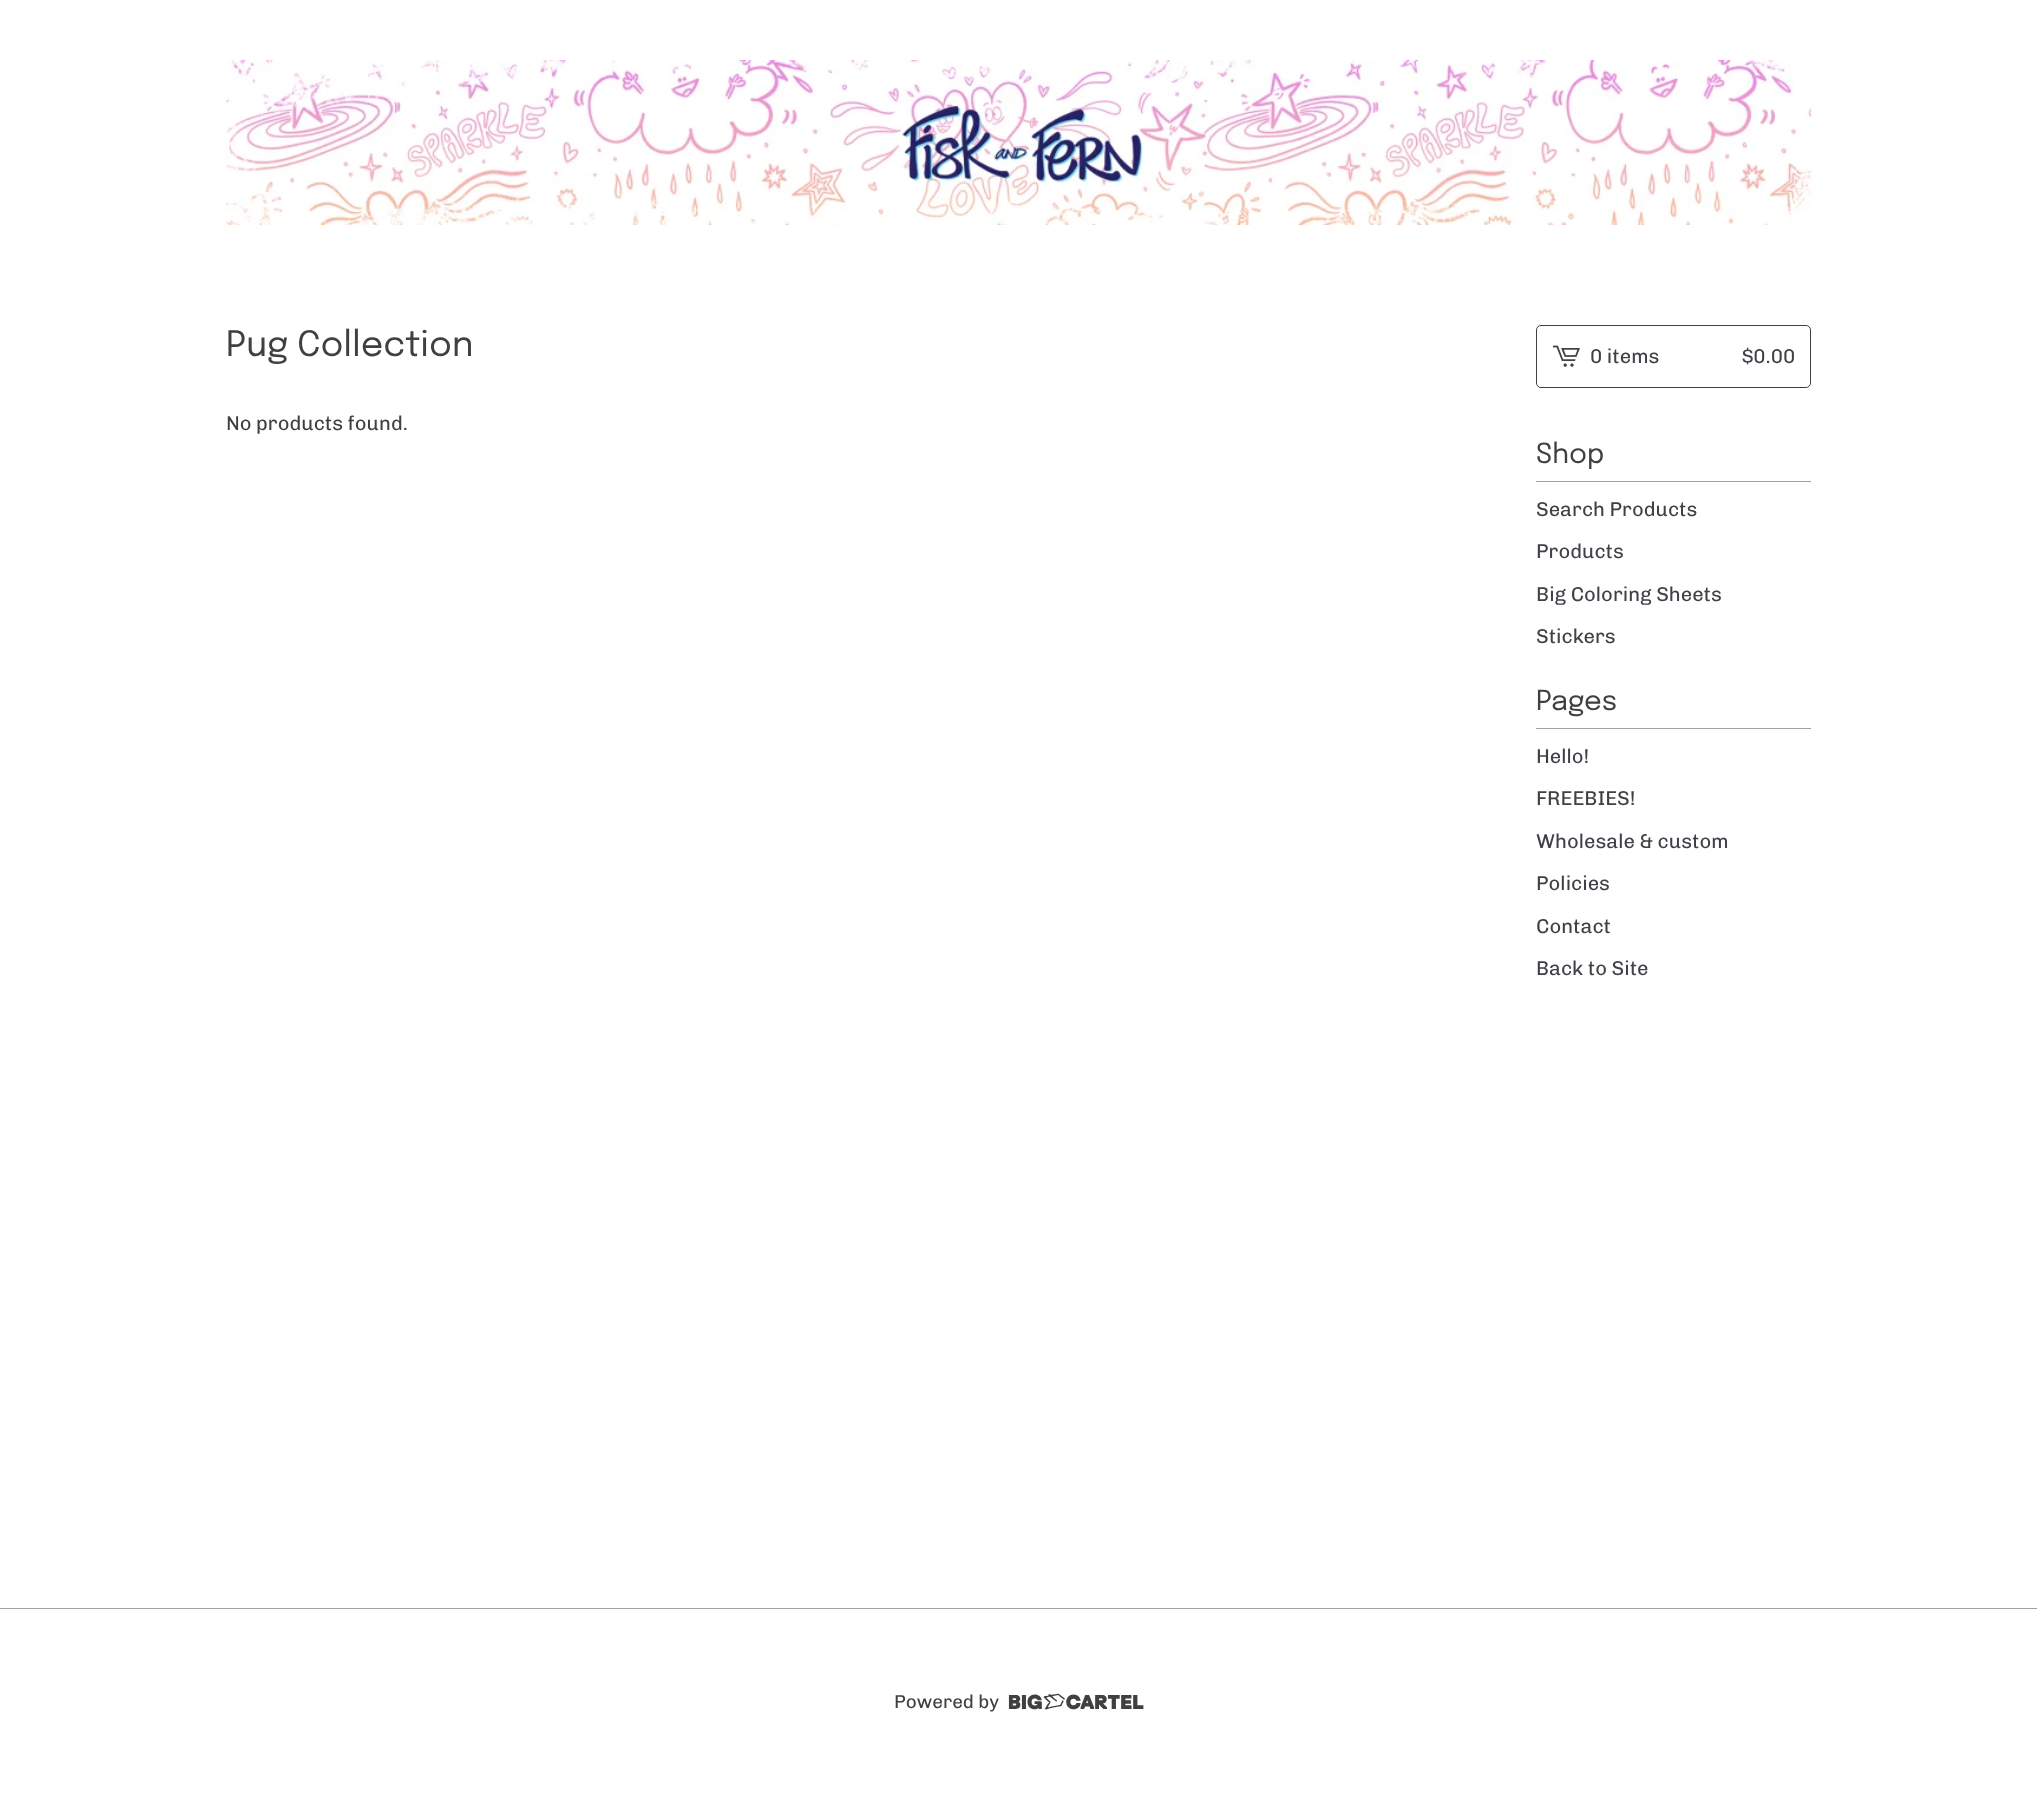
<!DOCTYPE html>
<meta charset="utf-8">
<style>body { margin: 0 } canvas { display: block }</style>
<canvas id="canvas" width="2037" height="1794"></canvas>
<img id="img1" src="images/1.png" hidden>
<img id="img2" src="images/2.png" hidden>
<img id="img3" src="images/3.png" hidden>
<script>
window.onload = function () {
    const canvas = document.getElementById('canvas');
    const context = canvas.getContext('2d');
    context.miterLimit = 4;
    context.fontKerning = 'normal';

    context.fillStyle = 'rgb(255, 255, 255)';
    context.fillRect(0, 0, 2037, 1794);
    context.drawImage(document.getElementById('img1'), 226, 60, 1586, 165);
    context.beginPath();
    context.roundRect(1536.5, 325.5, 274, 62, 4.5);
    context.strokeStyle = 'rgb(64, 65, 71)';
    context.stroke();
    context.drawImage(document.getElementById('img2'), 1553, 345, 27, 22);
    context.fillStyle = 'rgb(160, 160, 160)';
    context.fillRect(1536, 481, 275, 1);
    context.fillRect(1536, 728, 275, 1);
    context.fillRect(0, 1608, 2037, 1);
    context.drawImage(document.getElementById('img3'), 1008, 1693, 136, 17);
    context.font = '35px Epilogue';
    context.fillStyle = 'rgb(64, 64, 64)';
    context.fillText('Pug Collection', 226, 356);
    context.font = '20px Chivo';
    context.fillText('No products found.', 226, 430);
    context.fillStyle = 'rgb(64, 65, 71)';
    context.fillText('0 items', 1590, 363);
    context.fillText('$0.00', 1742, 363);
    context.font = '27.5px Epilogue';
    context.fillStyle = 'rgb(64, 64, 64)';
    context.fillText('Shop', 1536, 463);
    context.font = '20px Chivo';
    context.fillStyle = 'rgb(64, 65, 71)';
    context.fillText('Search Products', 1536, 516);
    context.fillText('Products', 1536, 558);
    context.fillText('Big Coloring Sheets', 1536, 601);
    context.fillText('Stickers', 1536, 643);
    context.font = '27.5px Epilogue';
    context.fillStyle = 'rgb(64, 64, 64)';
    context.fillText('Pages', 1536, 710);
    context.font = '20px Chivo';
    context.fillStyle = 'rgb(64, 65, 71)';
    context.fillText('Hello!', 1536, 763);
    context.fillText('FREEBIES!', 1536, 805);
    context.fillText('Wholesale & custom', 1536, 848);
    context.fillText('Policies', 1536, 890);
    context.fillText('Contact', 1536, 933);
    context.fillText('Back to Site', 1536, 975);
    context.font = '18.75px Chivo';
    context.fillStyle = 'rgb(64, 64, 64)';
    context.fillText('Powered by', 894, 1708);
};
</script>
